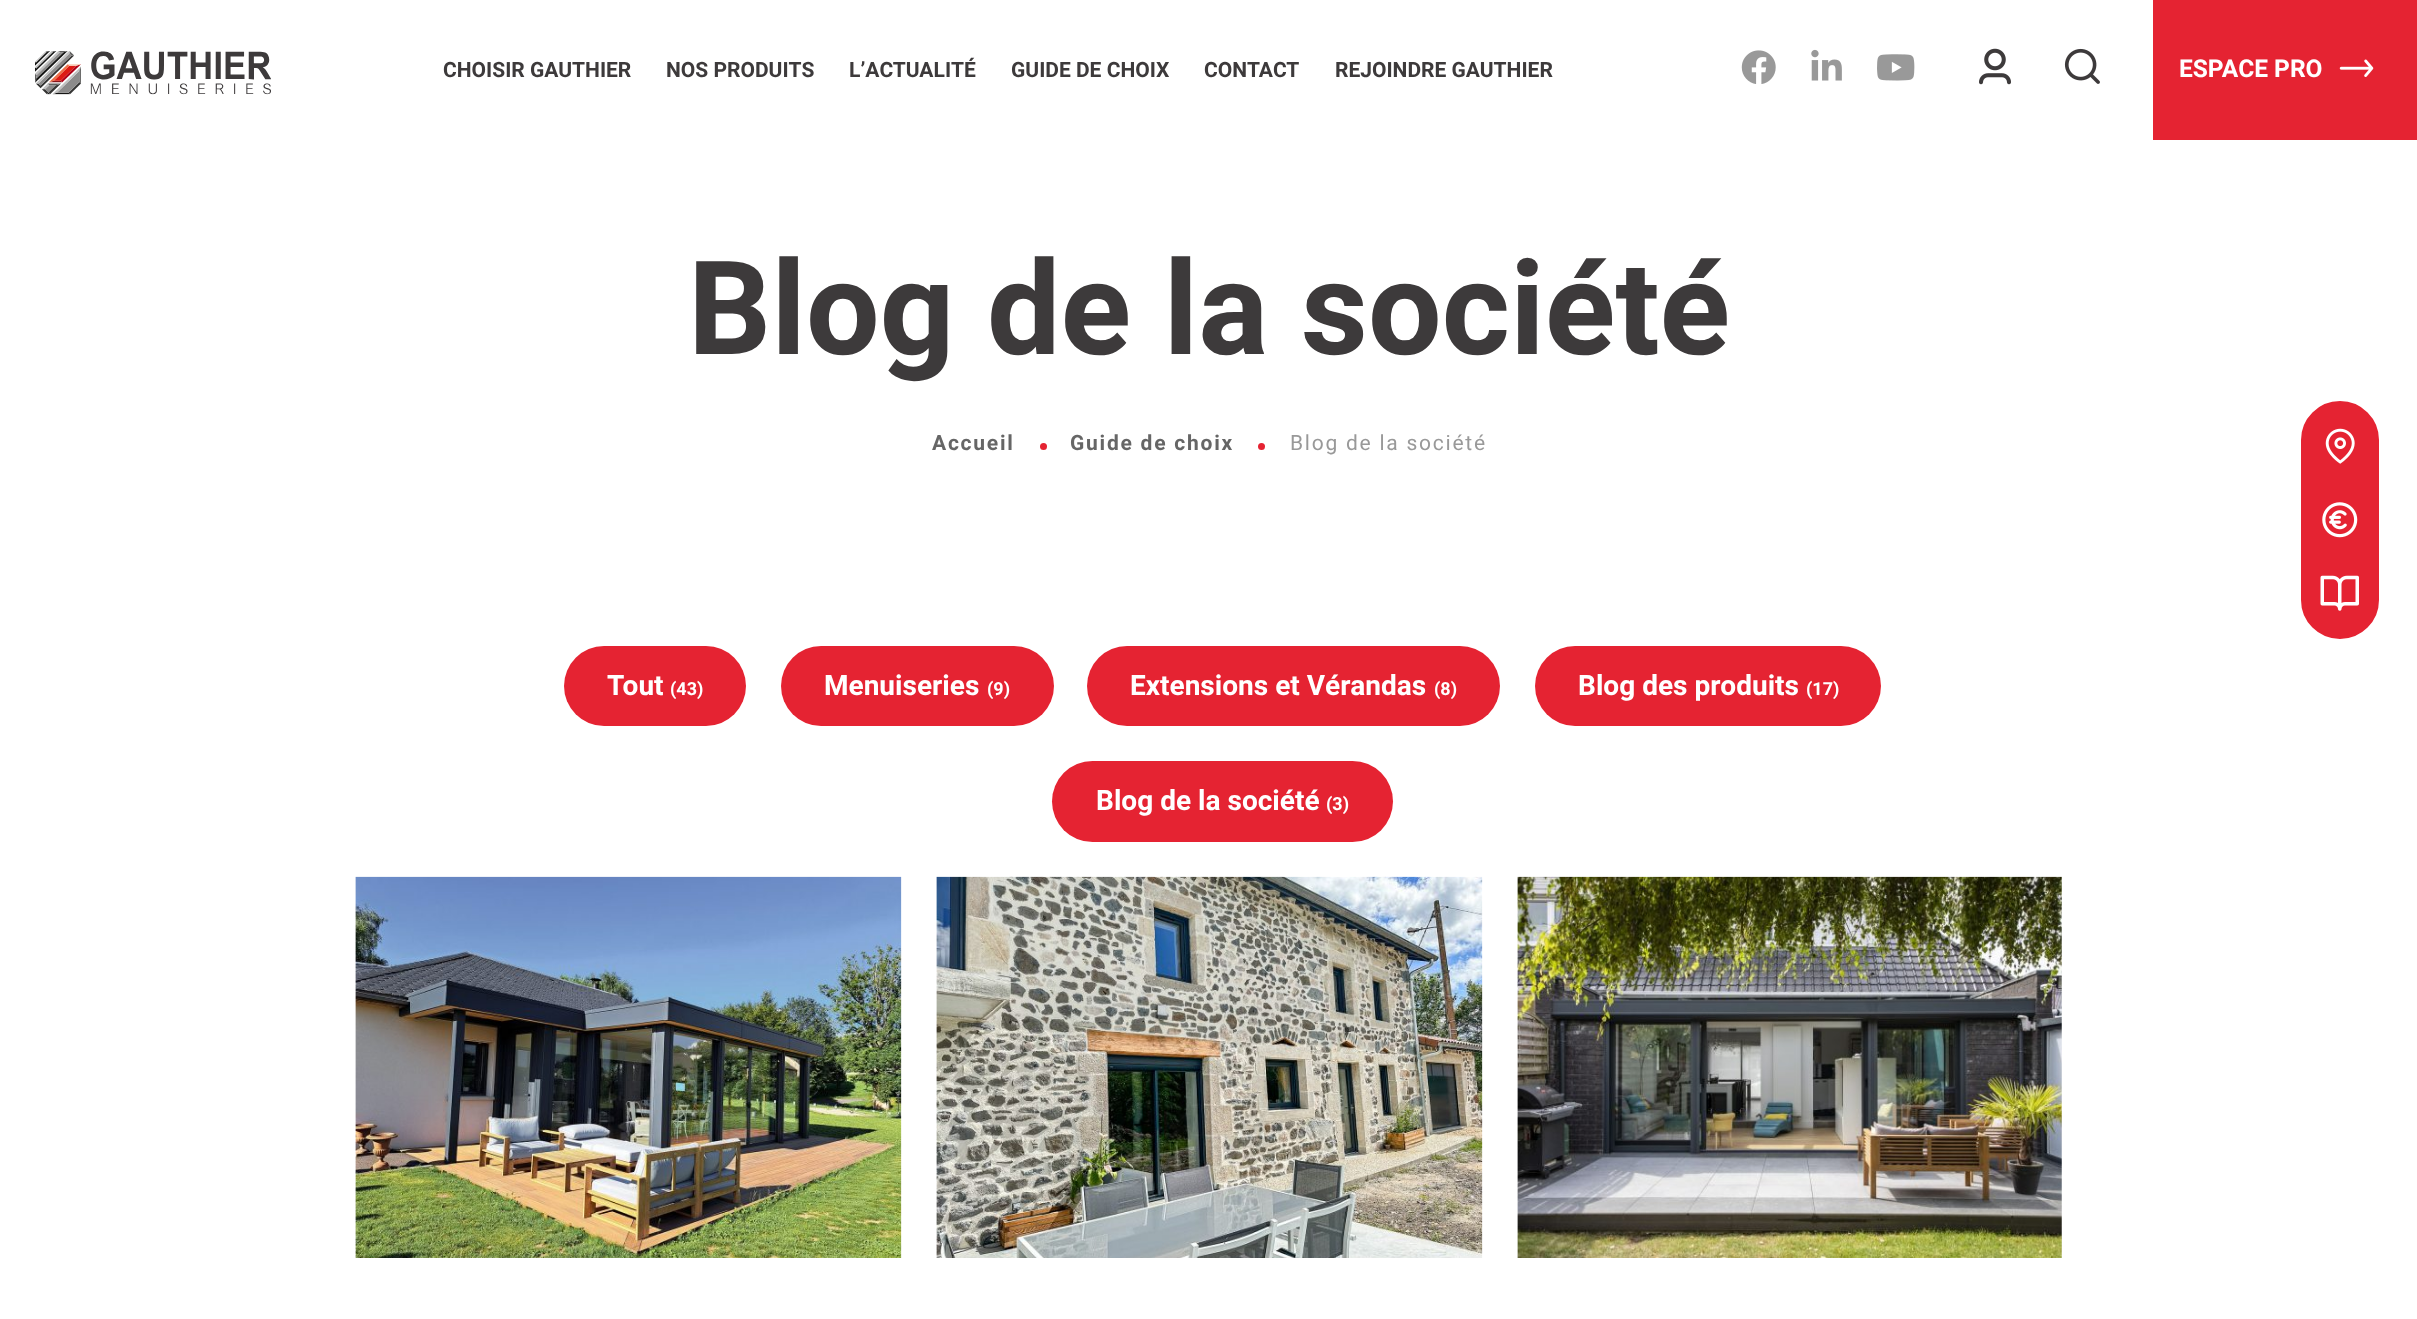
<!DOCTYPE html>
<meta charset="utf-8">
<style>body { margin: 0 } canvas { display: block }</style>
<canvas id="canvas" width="2417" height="1319"></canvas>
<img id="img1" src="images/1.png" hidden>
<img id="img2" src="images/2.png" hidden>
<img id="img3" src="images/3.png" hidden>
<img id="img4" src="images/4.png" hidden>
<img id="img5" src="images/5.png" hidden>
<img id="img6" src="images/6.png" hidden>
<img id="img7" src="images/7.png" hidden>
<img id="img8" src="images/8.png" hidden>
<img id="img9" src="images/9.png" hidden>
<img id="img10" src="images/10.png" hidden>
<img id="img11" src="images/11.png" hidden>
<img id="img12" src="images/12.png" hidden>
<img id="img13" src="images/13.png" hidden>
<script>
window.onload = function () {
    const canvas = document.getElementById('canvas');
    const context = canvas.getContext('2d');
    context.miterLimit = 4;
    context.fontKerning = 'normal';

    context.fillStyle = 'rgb(255, 255, 255)';
    context.fillRect(0, 0, 2417, 1319);
    context.drawImage(document.getElementById('img1'), 35, 51, 236, 44);
    context.drawImage(document.getElementById('img2'), 1741, 50, 35, 34);
    context.drawImage(document.getElementById('img3'), 1811, 49, 31, 32);
    context.drawImage(document.getElementById('img4'), 1877, 54, 38, 27);
    context.drawImage(document.getElementById('img5'), 1979, 48, 32, 37);
    context.drawImage(document.getElementById('img6'), 2064, 48, 36, 36);
    context.fillStyle = 'rgb(229, 35, 50)';
    context.fillRect(2153, 0, 264, 140);
    context.drawImage(document.getElementById('img7'), 2339, 59, 35, 18);
    context.beginPath();
    context.arc(1043.5, 446.5, 3.5, 0, 2 * Math.PI);
    context.fill();
    context.beginPath();
    context.arc(1261.5, 446.5, 3.5, 0, 2 * Math.PI);
    context.fill();
    context.beginPath();
    context.roundRect(2298.5, 398.5, 83, 243, 41.5);
    context.fill();
    context.strokeStyle = 'rgb(255, 255, 255)';
    context.lineWidth = 5;
    context.stroke();
    context.drawImage(document.getElementById('img8'), 2325, 428, 30, 36);
    context.drawImage(document.getElementById('img9'), 2322, 502, 36, 36);
    context.drawImage(document.getElementById('img10'), 2320, 575, 39, 36);
    context.beginPath();
    context.roundRect(564, 646, 182, 80, 40);
    context.fill();
    context.beginPath();
    context.roundRect(781, 646, 273, 80, 40);
    context.fill();
    context.beginPath();
    context.roundRect(1087, 646, 413, 80, 40);
    context.fill();
    context.beginPath();
    context.roundRect(1535, 646, 346, 80, 40);
    context.fill();
    context.beginPath();
    context.roundRect(1052, 761, 341, 81, 40.5);
    context.fill();
    context.drawImage(document.getElementById('img11'), 355, 876, 547, 382);
    context.drawImage(document.getElementById('img12'), 936, 876, 547, 382);
    context.drawImage(document.getElementById('img13'), 1517, 876, 545, 382);
    context.font = 'bold 21px Heebo';
    context.fillStyle = 'rgb(61, 58, 59)';
    context.fillText('CHOISIR GAUTHIER', 443, 77);
    context.fillText('NOS PRODUITS', 666, 77);
    context.fillText('L’ACTUALITÉ', 849, 77);
    context.fillText('GUIDE DE CHOIX', 1011, 77);
    context.fillText('CONTACT', 1204, 77);
    context.fillText('REJOINDRE GAUTHIER', 1335, 77);
    context.font = 'bold 24.5px Heebo';
    context.fillStyle = 'rgb(255, 255, 255)';
    context.fillText('ESPACE PRO', 2179, 77);
    context.font = 'bold 130.5px Heebo';
    context.fillStyle = 'rgb(61, 58, 59)';
    context.fillText('Blog de la société', 688, 354);
    context.letterSpacing = '1.75px';
    context.font = 'bold 21px Heebo';
    context.fillStyle = 'rgb(102, 102, 102)';
    context.fillText('Accueil', 932, 450);
    context.fillText('Guide de choix', 1070, 450);
    context.font = '21px Heebo';
    context.fillStyle = 'rgb(153, 153, 153)';
    context.fillText('Blog de la société', 1290, 450);
    context.letterSpacing = '0px';
    context.font = 'bold 28px Heebo';
    context.fillStyle = 'rgb(255, 255, 255)';
    context.fillText('Tout', 607, 695);
    context.font = 'bold 18px Heebo';
    context.fillText('(43)', 670, 695);
    context.font = 'bold 28px Heebo';
    context.fillText('Menuiseries', 824, 695);
    context.font = 'bold 18px Heebo';
    context.fillText('(9)', 987, 695);
    context.font = 'bold 28px Heebo';
    context.fillText('Extensions et Vérandas', 1130, 695);
    context.font = 'bold 18px Heebo';
    context.fillText('(8)', 1434, 695);
    context.font = 'bold 28px Heebo';
    context.fillText('Blog des produits', 1578, 695);
    context.font = 'bold 18px Heebo';
    context.fillText('(17)', 1806, 695);
    context.font = 'bold 28px Heebo';
    context.fillText('Blog de la société', 1096, 810);
    context.font = 'bold 18px Heebo';
    context.fillText('(3)', 1326, 810);
};
</script>
